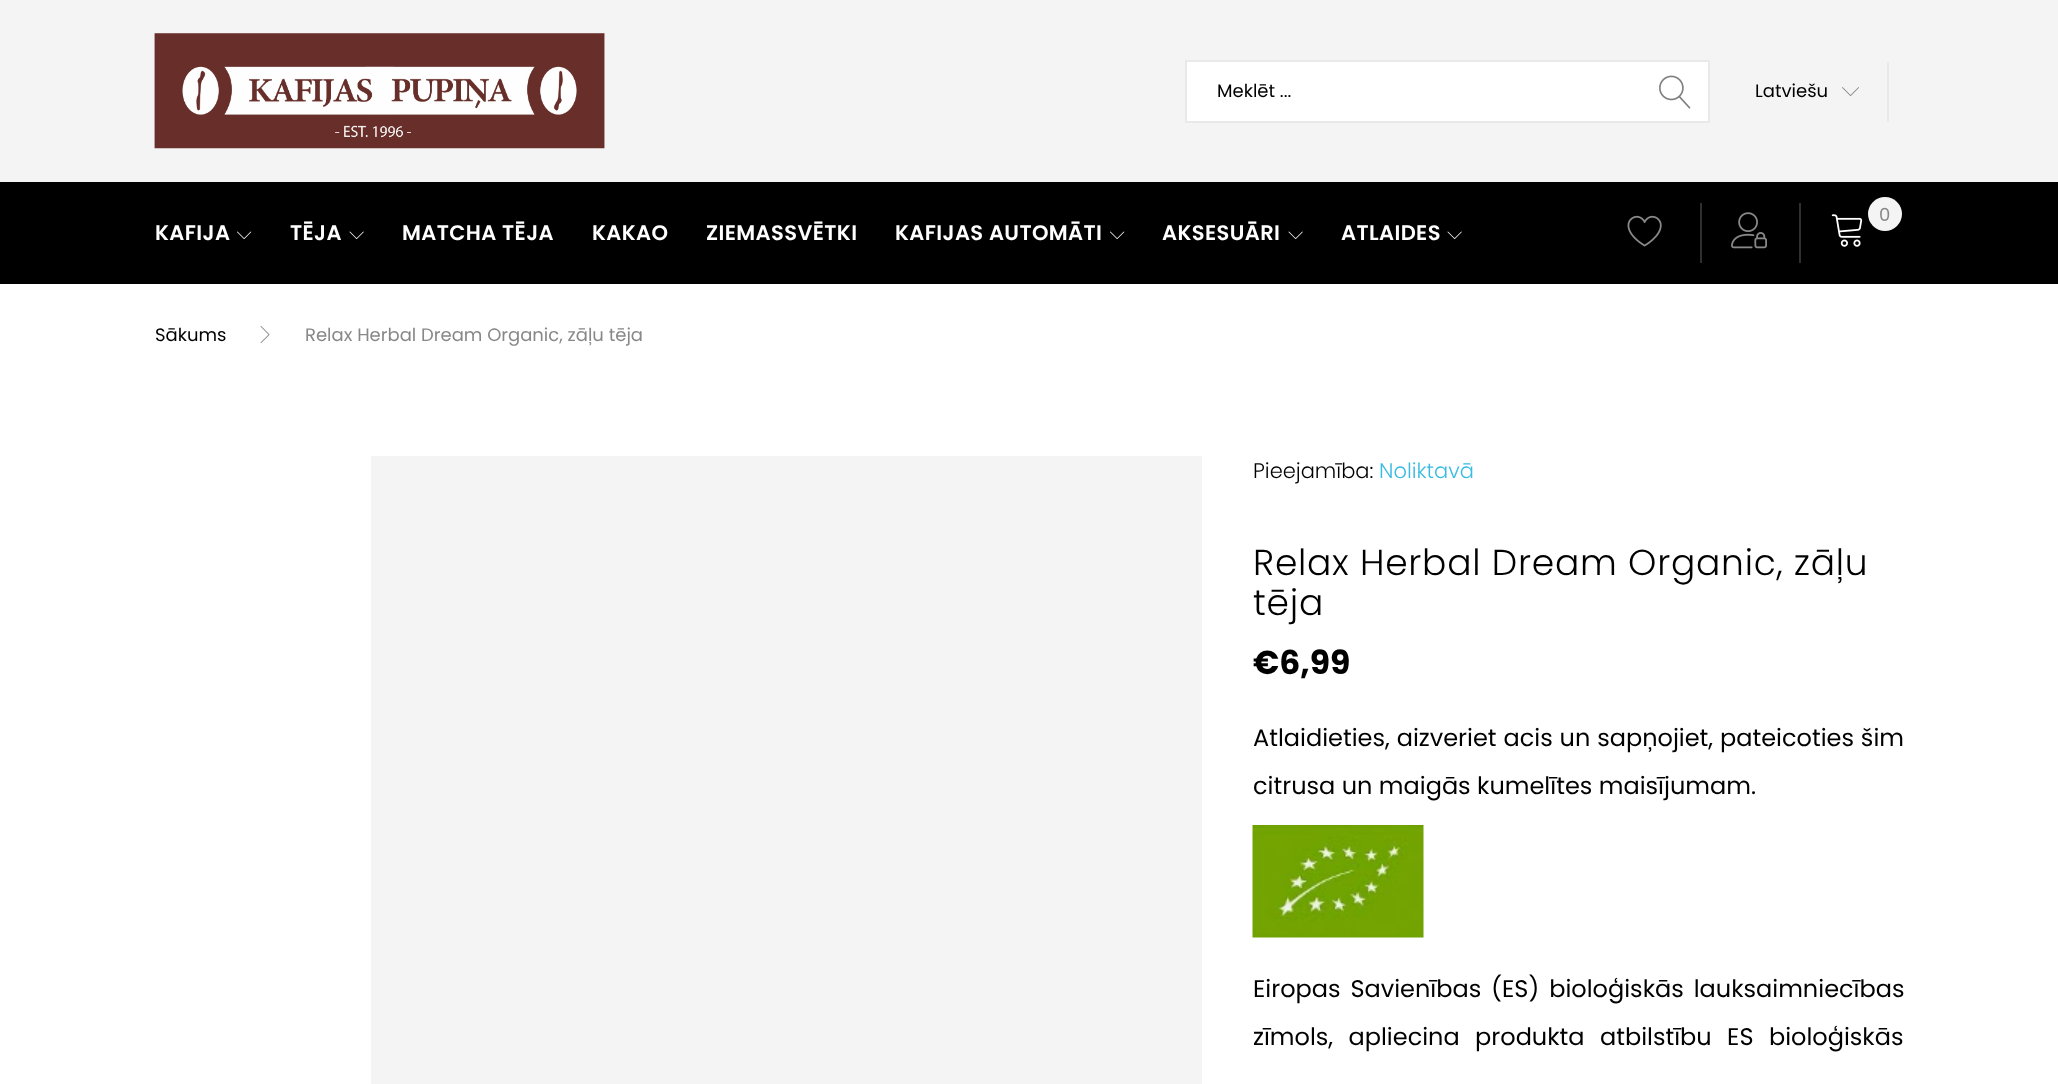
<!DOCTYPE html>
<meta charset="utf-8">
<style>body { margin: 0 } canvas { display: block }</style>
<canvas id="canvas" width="2058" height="1084"></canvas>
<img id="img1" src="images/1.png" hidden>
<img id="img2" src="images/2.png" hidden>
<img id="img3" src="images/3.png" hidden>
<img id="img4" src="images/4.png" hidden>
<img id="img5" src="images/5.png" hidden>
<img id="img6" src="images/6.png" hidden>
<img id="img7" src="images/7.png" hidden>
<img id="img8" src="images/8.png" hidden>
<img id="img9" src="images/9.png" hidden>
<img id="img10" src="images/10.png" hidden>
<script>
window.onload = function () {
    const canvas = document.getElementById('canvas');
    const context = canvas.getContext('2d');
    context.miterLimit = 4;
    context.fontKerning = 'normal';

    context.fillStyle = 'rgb(255, 255, 255)';
    context.fillRect(0, 0, 2058, 1084);
    context.fillStyle = 'rgb(244, 244, 244)';
    context.fillRect(0, 0, 2058, 182);
    context.drawImage(document.getElementById('img1'), 154, 33, 451, 116);
    context.fillStyle = 'rgb(255, 255, 255)';
    context.beginPath();
    context.rect(1186, 61, 523, 61);
    context.fill();
    context.strokeStyle = 'rgb(234, 233, 233)';
    context.lineWidth = 2;
    context.stroke();
    context.drawImage(document.getElementById('img2'), 1659, 75, 32, 34);
    context.fillStyle = 'rgb(234, 233, 233)';
    context.fillRect(1887, 62, 2, 60);
    context.drawImage(document.getElementById('img3'), 1842, 87, 17, 9);
    context.fillStyle = 'rgb(0, 0, 0)';
    context.fillRect(0, 182, 2058, 102);
    context.drawImage(document.getElementById('img4'), 1627, 215, 35, 32);
    context.fillStyle = 'rgb(47, 47, 47)';
    context.fillRect(1700, 203, 2, 60);
    context.drawImage(document.getElementById('img5'), 1731, 212, 36, 37);
    context.fillRect(1799, 203, 2, 60);
    context.drawImage(document.getElementById('img6'), 1831, 214, 32, 33);
    context.fillStyle = 'rgb(244, 244, 244)';
    context.beginPath();
    context.arc(1885, 214, 17, 0, 2 * Math.PI);
    context.fill();
    context.drawImage(document.getElementById('img7'), 237, 231, 15, 8);
    context.drawImage(document.getElementById('img8'), 349, 231, 15, 8);
    context.drawImage(document.getElementById('img7'), 1110, 231, 15, 8);
    context.drawImage(document.getElementById('img8'), 1288, 231, 15, 8);
    context.drawImage(document.getElementById('img8'), 1447, 231, 15, 8);
    context.drawImage(document.getElementById('img9'), 260, 326, 10, 17);
    context.fillRect(371, 456, 831, 628);
    context.drawImage(document.getElementById('img10'), 1252, 825, 172, 113);
    context.font = '18px Poppins';
    context.fillStyle = 'rgb(0, 0, 0)';
    context.fillText('Meklēt ...', 1217, 97);
    context.fillText('Latviešu', 1755, 97);
    context.fillStyle = 'rgb(136, 136, 136)';
    context.fillText('0', 1879, 221);
    context.letterSpacing = '0.4px';
    context.font = '600 21px Poppins';
    context.fillStyle = 'rgb(255, 255, 255)';
    context.fillText('KAFIJA', 155, 240);
    context.fillText('TĒJA', 290, 240);
    context.fillText('MATCHA TĒJA', 402, 240);
    context.fillText('KAKAO', 592, 240);
    context.fillText('ZIEMASSVĒTKI', 706, 240);
    context.fillText('KAFIJAS AUTOMĀTI', 895, 240);
    context.fillText('AKSESUĀRI', 1162, 240);
    context.fillText('ATLAIDES', 1341, 240);
    context.letterSpacing = '0px';
    context.font = '18px Poppins';
    context.fillStyle = 'rgb(0, 0, 0)';
    context.fillText('Sākums', 155, 341);
    context.fillStyle = 'rgb(136, 136, 136)';
    context.fillText('Relax Herbal Dream Organic, zāļu tēja', 305, 341);
    context.font = '300 21px Poppins';
    context.fillStyle = 'rgb(0, 0, 0)';
    context.fillText('Pieejamība:', 1253, 478);
    context.fillStyle = 'rgb(58, 188, 226)';
    context.fillText('Noliktavā', 1379, 478);
    context.letterSpacing = '0.75px';
    context.font = '300 36px Poppins';
    context.fillStyle = 'rgb(0, 0, 0)';
    context.fillText('Relax Herbal Dream Organic, zāļu', 1253, 575);
    context.fillText('tēja', 1253, 615);
    context.letterSpacing = '0px';
    context.font = 'bold 33px Poppins';
    context.fillText('€6,99', 1253, 674);
    context.wordSpacing = '0.5px';
    context.font = '24px Poppins';
    context.fillText('Atlaidieties, aizveriet acis un sapņojiet, pateicoties šim', 1253, 746);
    context.wordSpacing = '0px';
    context.fillText('citrusa un maigās kumelītes maisījumam.', 1253, 794);
    context.wordSpacing = '3.5px';
    context.fillText('Eiropas Savienības (ES) bioloģiskās lauksaimniecības', 1253, 997);
    context.wordSpacing = '9px';
    context.fillText('zīmols, apliecina produkta atbilstību ES bioloģiskās', 1253, 1045);
};
</script>
